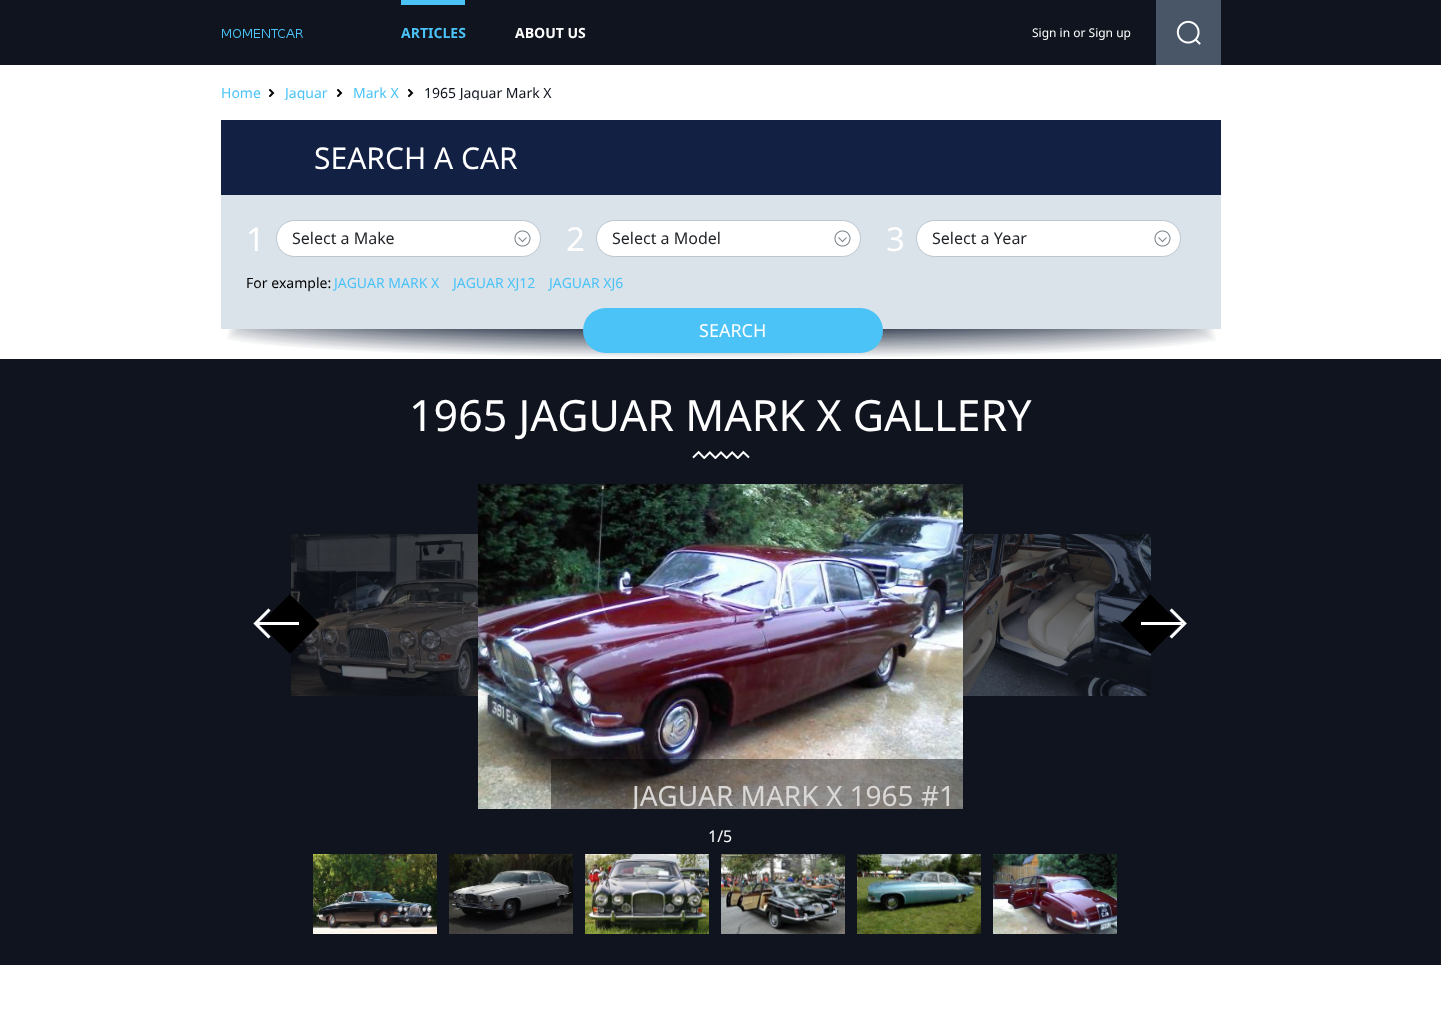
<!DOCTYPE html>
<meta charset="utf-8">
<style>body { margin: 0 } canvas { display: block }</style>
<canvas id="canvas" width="1441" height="1010"></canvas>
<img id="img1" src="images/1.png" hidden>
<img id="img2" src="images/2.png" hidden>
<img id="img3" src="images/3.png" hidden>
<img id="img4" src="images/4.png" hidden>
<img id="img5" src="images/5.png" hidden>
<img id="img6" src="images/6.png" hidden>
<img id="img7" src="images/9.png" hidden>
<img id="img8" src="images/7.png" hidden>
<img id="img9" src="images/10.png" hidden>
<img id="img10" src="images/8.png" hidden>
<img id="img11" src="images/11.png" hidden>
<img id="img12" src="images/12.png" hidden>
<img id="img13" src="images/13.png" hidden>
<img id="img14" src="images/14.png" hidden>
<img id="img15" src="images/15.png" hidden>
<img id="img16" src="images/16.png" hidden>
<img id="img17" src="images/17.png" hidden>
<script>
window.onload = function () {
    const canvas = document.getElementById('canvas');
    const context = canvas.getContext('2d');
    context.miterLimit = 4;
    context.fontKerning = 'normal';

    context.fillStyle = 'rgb(255, 255, 255)';
    context.fillRect(0, 0, 1441, 1010);
    context.fillStyle = 'rgb(15, 20, 30)';
    context.fillRect(0, 0, 1441, 65);
    context.drawImage(document.getElementById('img1'), 222, 29, 81, 9);
    context.fillStyle = 'rgb(75, 195, 247)';
    context.fillRect(401, 0, 64, 5);
    context.fillStyle = 'rgb(73, 86, 104)';
    context.fillRect(1156, 0, 65, 65);
    context.drawImage(document.getElementById('img2'), 1176, 20, 25, 25);
    context.drawImage(document.getElementById('img3'), 269, 89, 6, 8);
    context.drawImage(document.getElementById('img3'), 337, 89, 6, 8);
    context.drawImage(document.getElementById('img3'), 408, 89, 6, 8);
    context.drawImage(document.getElementById('img4'), 221, 325, 1000, 33);
    context.fillStyle = 'rgb(18, 32, 68)';
    context.fillRect(221, 120, 1000, 75);
    context.fillStyle = 'rgb(218, 226, 234)';
    context.fillRect(221, 195, 1000, 130);
    context.fillStyle = 'rgb(255, 255, 255)';
    context.beginPath();
    context.roundRect(276.5, 220.5, 264, 36, 18);
    context.fill();
    context.strokeStyle = 'rgb(188, 198, 206)';
    context.stroke();
    context.drawImage(document.getElementById('img5'), 514, 230, 17, 17);
    context.beginPath();
    context.roundRect(596.5, 220.5, 264, 36, 18);
    context.fill();
    context.stroke();
    context.drawImage(document.getElementById('img5'), 834, 230, 17, 17);
    context.beginPath();
    context.roundRect(916.5, 220.5, 264, 36, 18);
    context.fill();
    context.stroke();
    context.drawImage(document.getElementById('img5'), 1154, 230, 17, 17);
    context.fillStyle = 'rgb(75, 195, 247)';
    context.beginPath();
    context.roundRect(583, 308, 300, 45, 22.5);
    context.fill();
    context.fillStyle = 'rgb(15, 20, 30)';
    context.fillRect(0, 359, 1441, 606);
    context.drawImage(document.getElementById('img6'), 692, 450, 58, 9);
    context.drawImage(document.getElementById('img7'), 291, 534, 187, 162);
    context.drawImage(document.getElementById('img8'), 253, 594, 67, 60);
    context.drawImage(document.getElementById('img9'), 963, 534, 188, 162);
    context.drawImage(document.getElementById('img10'), 1120, 594, 67, 60);
    context.drawImage(document.getElementById('img11'), 478, 484, 485, 325);
    context.fillStyle = 'rgba(0, 0, 0, 0.42)';
    context.fillRect(551, 759, 412, 50);
    context.drawImage(document.getElementById('img12'), 313, 854, 124, 80);
    context.drawImage(document.getElementById('img13'), 449, 854, 124, 80);
    context.drawImage(document.getElementById('img14'), 585, 854, 124, 80);
    context.drawImage(document.getElementById('img15'), 721, 854, 124, 80);
    context.drawImage(document.getElementById('img16'), 857, 854, 124, 80);
    context.drawImage(document.getElementById('img17'), 993, 854, 124, 80);
    context.font = 'bold 14px Noto Sans';
    context.fillStyle = 'rgb(75, 195, 247)';
    context.fillText('ARTICLES', 401, 38);
    context.fillStyle = 'rgb(255, 255, 255)';
    context.fillText('ABOUT US', 515, 38);
    context.font = '12px Noto Sans';
    context.fillText('Sign in or Sign up', 1032, 37);
    context.font = '14px Noto Sans';
    context.fillStyle = 'rgb(75, 195, 247)';
    context.fillText('Home', 221, 98);
    context.save();
    context.beginPath();
    context.rect(211, 85, 1010, 15);
    context.clip();
    context.fillText('Jaguar', 285, 98);
    context.restore();
    context.fillText('Mark X', 353, 98);
    context.save();
    context.beginPath();
    context.rect(211, 85, 1010, 15);
    context.clip();
    context.fillStyle = 'rgb(15, 20, 30)';
    context.fillText('1965 Jaguar Mark X', 424, 98);
    context.restore();
    context.font = '30px Noto Sans';
    context.fillStyle = 'rgb(255, 255, 255)';
    context.fillText('SEARCH A CAR', 314, 169);
    context.font = '33px Noto Sans';
    context.fillText('1', 246, 251);
    context.font = '16px Noto Sans';
    context.fillStyle = 'rgb(33, 37, 41)';
    context.fillText('Select a Make', 292, 244);
    context.font = '33px Noto Sans';
    context.fillStyle = 'rgb(255, 255, 255)';
    context.fillText('2', 566, 251);
    context.font = '16px Noto Sans';
    context.fillStyle = 'rgb(33, 37, 41)';
    context.fillText('Select a Model', 612, 244);
    context.font = '33px Noto Sans';
    context.fillStyle = 'rgb(255, 255, 255)';
    context.fillText('3', 886, 251);
    context.font = '16px Noto Sans';
    context.fillStyle = 'rgb(33, 37, 41)';
    context.fillText('Select a Year', 932, 244);
    context.font = '14px Noto Sans';
    context.fillStyle = 'rgb(0, 0, 0)';
    context.fillText('For example:', 246, 288);
    context.fillStyle = 'rgb(75, 195, 247)';
    context.fillText('JAGUAR MARK X', 334, 288);
    context.fillText('JAGUAR XJ12', 453, 288);
    context.fillText('JAGUAR XJ6', 549, 288);
    context.font = '18px Noto Sans';
    context.fillStyle = 'rgb(255, 255, 255)';
    context.fillText('SEARCH', 699, 337);
    context.font = '43px Noto Sans';
    context.fillText('1965 JAGUAR MARK X GALLERY', 409, 431);
    context.save();
    context.beginPath();
    context.rect(478, 484, 485, 325);
    context.clip();
    context.font = '28px Noto Sans';
    context.fillStyle = 'rgb(218, 216, 215)';
    context.fillText('JAGUAR MARK X 1965 #1', 632, 806);
    context.restore();
    context.font = '16px Noto Sans';
    context.fillText('1/5', 708, 842);
};
</script>
